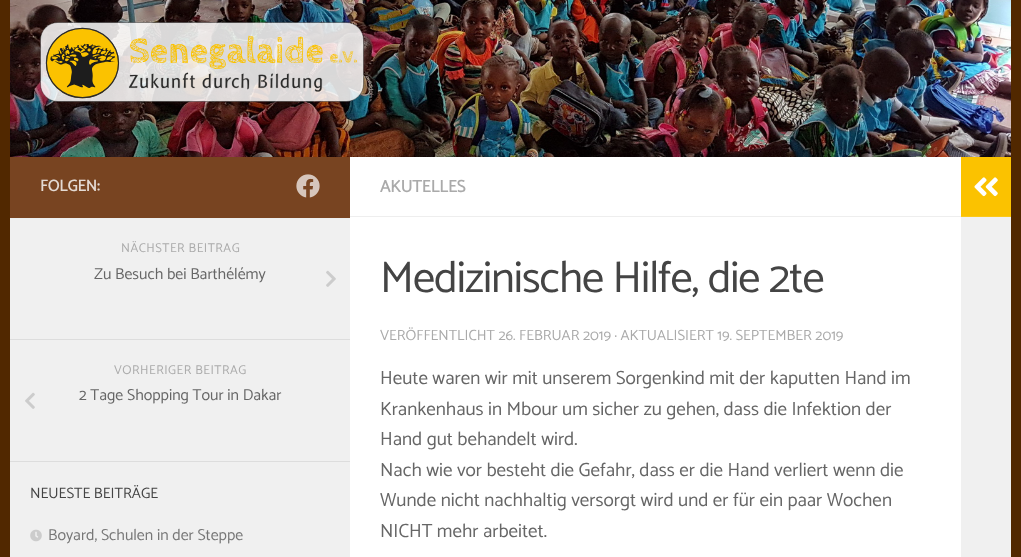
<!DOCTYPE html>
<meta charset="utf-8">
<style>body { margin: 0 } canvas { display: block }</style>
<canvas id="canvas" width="1021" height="557"></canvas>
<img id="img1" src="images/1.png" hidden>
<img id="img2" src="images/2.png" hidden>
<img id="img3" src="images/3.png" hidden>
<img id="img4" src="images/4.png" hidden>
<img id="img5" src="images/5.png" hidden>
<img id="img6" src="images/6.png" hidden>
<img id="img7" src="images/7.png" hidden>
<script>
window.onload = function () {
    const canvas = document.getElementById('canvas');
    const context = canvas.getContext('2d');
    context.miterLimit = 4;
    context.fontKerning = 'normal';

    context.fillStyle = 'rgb(81, 40, 0)';
    context.fillRect(0, 0, 1021, 557);
    context.drawImage(document.getElementById('img1'), 10, 0, 1001, 157);
    context.drawImage(document.getElementById('img2'), 40, 22, 324, 80);
    context.fillStyle = 'rgb(255, 255, 255)';
    context.fillRect(350, 157, 611, 400);
    context.fillStyle = 'rgb(120, 68, 33)';
    context.fillRect(10, 157, 340, 61);
    context.drawImage(document.getElementById('img3'), 296, 174, 24, 24);
    context.fillStyle = 'rgb(238, 238, 238)';
    context.fillRect(10, 218, 340, 1);
    context.fillStyle = 'rgb(240, 240, 240)';
    context.fillRect(10, 219, 340, 338);
    context.fillStyle = 'rgb(221, 221, 221)';
    context.fillRect(10, 339, 340, 1);
    context.drawImage(document.getElementById('img4'), 326, 270, 10, 17);
    context.fillRect(10, 461, 340, 1);
    context.drawImage(document.getElementById('img5'), 25, 392, 10, 17);
    context.drawImage(document.getElementById('img6'), 30, 529, 12, 13);
    context.fillStyle = 'rgb(238, 238, 238)';
    context.fillRect(350, 216, 611, 1);
    context.fillStyle = 'rgb(251, 194, 0)';
    context.fillRect(961, 157, 50, 59);
    context.fillStyle = 'rgb(251, 200, 26)';
    context.fillRect(961, 216, 50, 1);
    context.drawImage(document.getElementById('img7'), 974, 177, 24, 20);
    context.fillStyle = 'rgb(240, 240, 240)';
    context.fillRect(961, 217, 50, 340);
    context.font = 'bold 16px Catamaran';
    context.fillStyle = 'rgb(228, 218, 211)';
    context.fillText('FOLGEN:', 40, 191);
    context.letterSpacing = '0.5px';
    context.font = '100 12.75px Catamaran';
    context.fillStyle = 'rgb(170, 170, 170)';
    context.fillText('NÄCHSTER BEITRAG', 121, 252);
    context.letterSpacing = '0px';
    context.font = '100 15.9px Catamaran';
    context.fillStyle = 'rgb(102, 102, 102)';
    context.fillText('Zu Besuch bei Barthélémy', 94, 279);
    context.letterSpacing = '0.5px';
    context.font = '100 12.75px Catamaran';
    context.fillStyle = 'rgb(170, 170, 170)';
    context.fillText('VORHERIGER BEITRAG', 114, 374);
    context.letterSpacing = '0px';
    context.font = '100 15.9px Catamaran';
    context.fillStyle = 'rgb(102, 102, 102)';
    context.fillText('2 Tage Shopping Tour in Dakar', 79, 400);
    context.font = '100 15px Catamaran';
    context.fillStyle = 'rgb(68, 68, 68)';
    context.fillText('NEUESTE BEITRÄGE', 30, 498);
    context.font = '100 15.9px Catamaran';
    context.fillStyle = 'rgb(119, 119, 119)';
    context.fillText('Boyard, Schulen in der Steppe', 48, 540);
    context.font = 'bold 17px Catamaran';
    context.fillStyle = 'rgb(170, 170, 170)';
    context.fillText('AKUTELLES', 380, 192);
    context.letterSpacing = '-1px';
    context.font = '100 44.5px Catamaran';
    context.fillStyle = 'rgb(68, 68, 68)';
    context.fillText('Medizinische Hilfe, die 2te', 380, 292);
    context.letterSpacing = '0px';
    context.font = '100 14.85px Catamaran';
    context.fillStyle = 'rgb(170, 170, 170)';
    context.fillText('VERÖFFENTLICHT 26. FEBRUAR 2019 · AKTUALISIERT 19. SEPTEMBER 2019', 380, 340);
    context.font = '100 19.1px Catamaran';
    context.fillStyle = 'rgb(102, 102, 102)';
    context.fillText('Heute waren wir mit unserem Sorgenkind mit der kaputten Hand im', 380, 384);
    context.fillText('Krankenhaus in Mbour um sicher zu gehen, dass die Infektion der', 380, 415);
    context.fillText('Hand gut behandelt wird.', 380, 445);
    context.fillText('Nach wie vor besteht die Gefahr, dass er die Hand verliert wenn die', 380, 476);
    context.fillText('Wunde nicht nachhaltig versorgt wird und er für ein paar Wochen', 380, 506);
    context.fillText('NICHT mehr arbeitet.', 380, 537);
};
</script>
